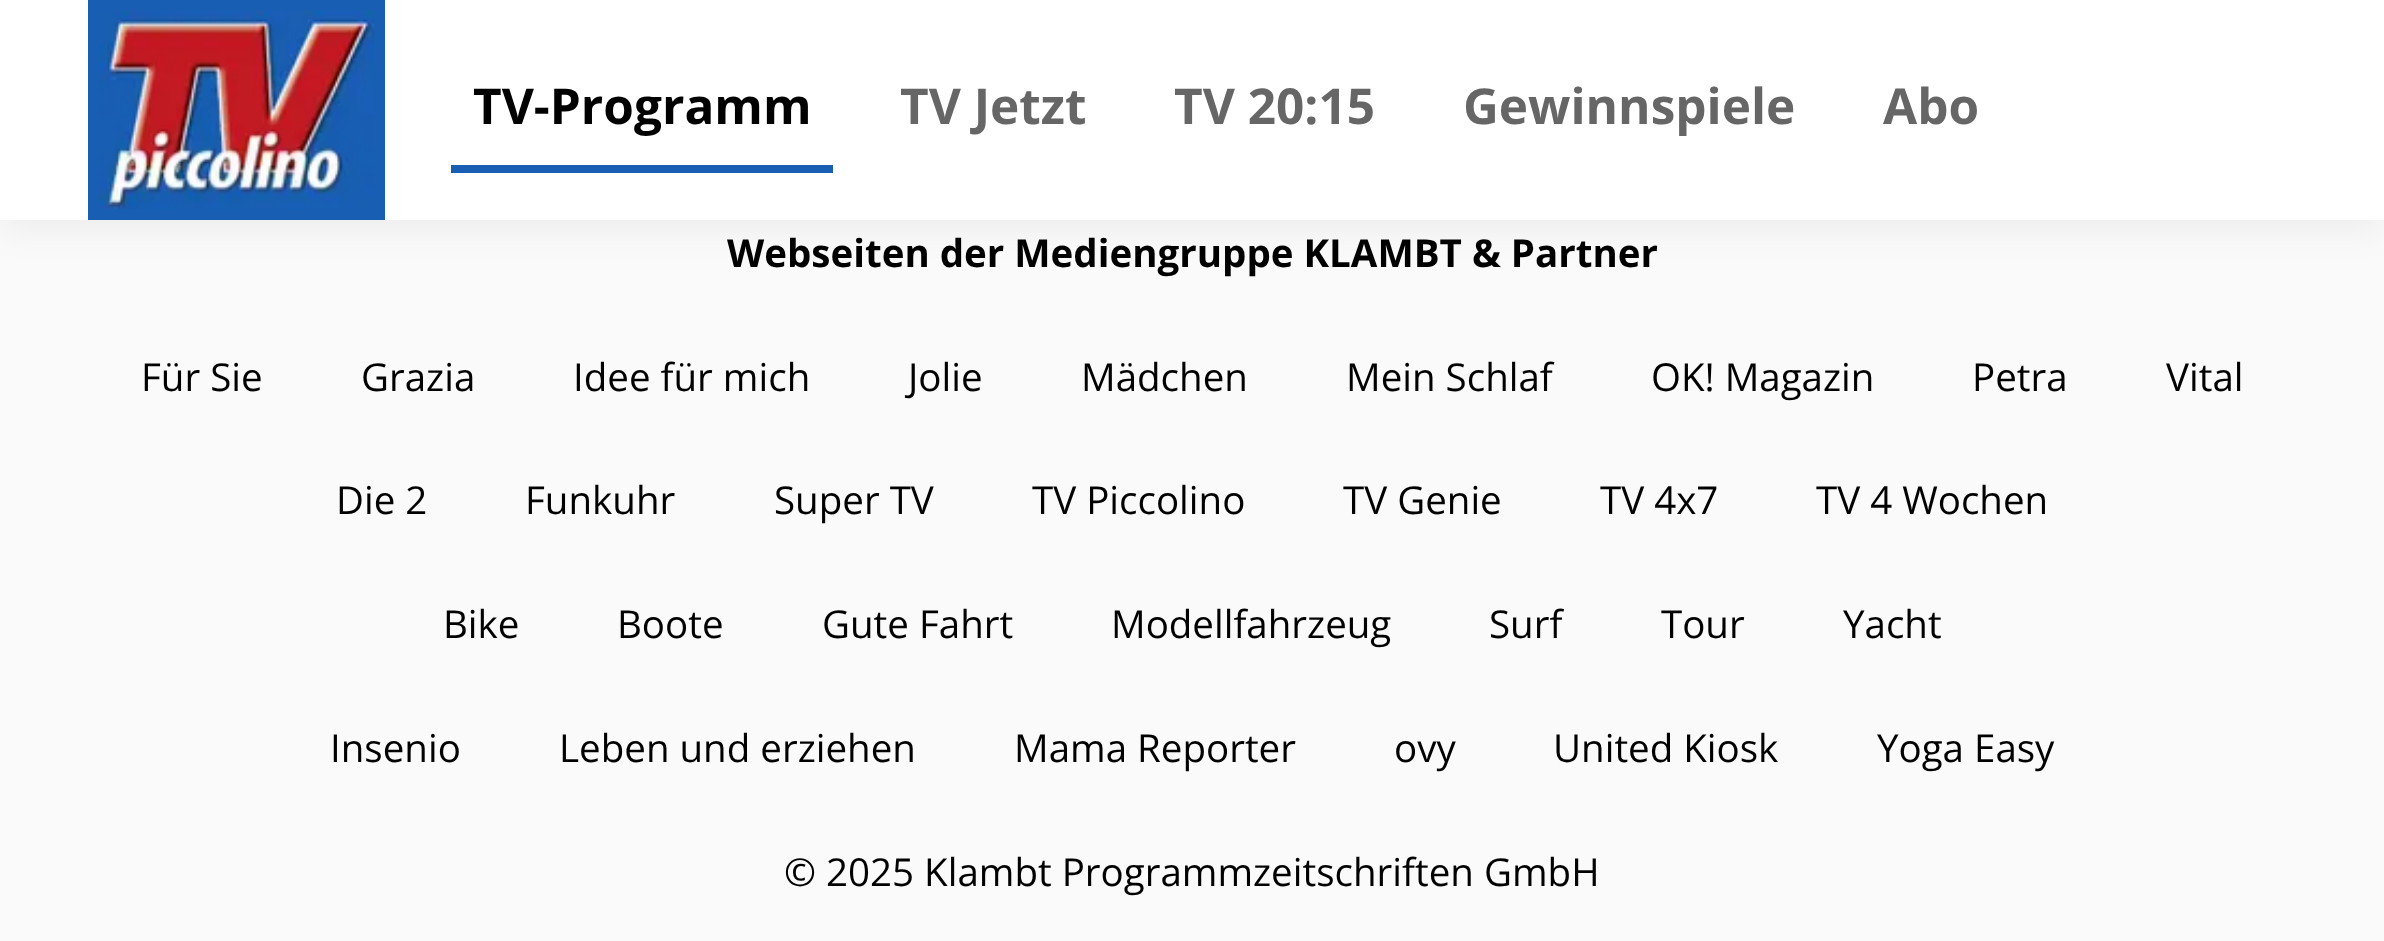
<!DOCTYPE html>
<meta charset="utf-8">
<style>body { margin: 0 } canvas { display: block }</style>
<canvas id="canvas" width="2384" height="941"></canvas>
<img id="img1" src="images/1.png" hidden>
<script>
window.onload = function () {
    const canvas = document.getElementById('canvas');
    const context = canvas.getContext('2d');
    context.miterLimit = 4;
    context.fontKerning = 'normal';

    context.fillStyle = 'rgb(250, 250, 250)';
    context.fillRect(0, 0, 2384, 941);
    context.fillStyle = 'rgba(0, 0, 0, 0.05)';
    context.filter = 'blur(16.5px)';
    context.beginPath();
    context.rect(0, 11, 2384, 220);
    context.fill();
    context.filter = 'none';
    context.fillStyle = 'rgb(255, 255, 255)';
    context.fillRect(0, 0, 2384, 220);
    context.fillStyle = 'rgb(24, 94, 179)';
    context.fillRect(88, 0, 297, 220);
    context.drawImage(document.getElementById('img1'), 99, 11, 275, 198);
    context.fillRect(451, 165, 382, 8);
    context.font = 'bold 49.5px Open Sans';
    context.fillStyle = 'rgb(0, 0, 0)';
    context.fillText('TV-Programm', 473, 124);
    context.fillStyle = 'rgb(102, 102, 102)';
    context.fillText('TV Jetzt', 900, 124);
    context.fillText('TV 20:15', 1174, 124);
    context.fillText('Gewinnspiele', 1463, 124);
    context.fillText('Abo', 1883, 124);
    context.font = 'bold 38.5px Open Sans';
    context.fillStyle = 'rgb(0, 0, 0)';
    context.fillText('Webseiten der Mediengruppe KLAMBT & Partner', 727, 267);
    context.font = '38.5px Open Sans';
    context.fillText('Für Sie', 141, 391);
    context.fillText('Grazia', 361, 391);
    context.fillText('Idee für mich', 573, 391);
    context.fillText('Jolie', 908, 391);
    context.fillText('Mädchen', 1081, 391);
    context.fillText('Mein Schlaf', 1346, 391);
    context.fillText('OK! Magazin', 1651, 391);
    context.fillText('Petra', 1972, 391);
    context.fillText('Vital', 2166, 391);
    context.fillText('Die 2', 336, 514);
    context.fillText('Funkuhr', 525, 514);
    context.fillText('Super TV', 774, 514);
    context.fillText('TV Piccolino', 1032, 514);
    context.fillText('TV Genie', 1343, 514);
    context.fillText('TV 4x7', 1600, 514);
    context.fillText('TV 4 Wochen', 1816, 514);
    context.fillText('Bike', 443, 638);
    context.fillText('Boote', 617, 638);
    context.fillText('Gute Fahrt', 822, 638);
    context.fillText('Modellfahrzeug', 1111, 638);
    context.fillText('Surf', 1489, 638);
    context.fillText('Tour', 1661, 638);
    context.fillText('Yacht', 1843, 638);
    context.fillText('Insenio', 330, 762);
    context.fillText('Leben und erziehen', 559, 762);
    context.fillText('Mama Reporter', 1014, 762);
    context.fillText('ovy', 1394, 762);
    context.fillText('United Kiosk', 1553, 762);
    context.fillText('Yoga Easy', 1877, 762);
    context.fillText('© 2025 Klambt Programmzeitschriften GmbH', 784, 886);
};
</script>
